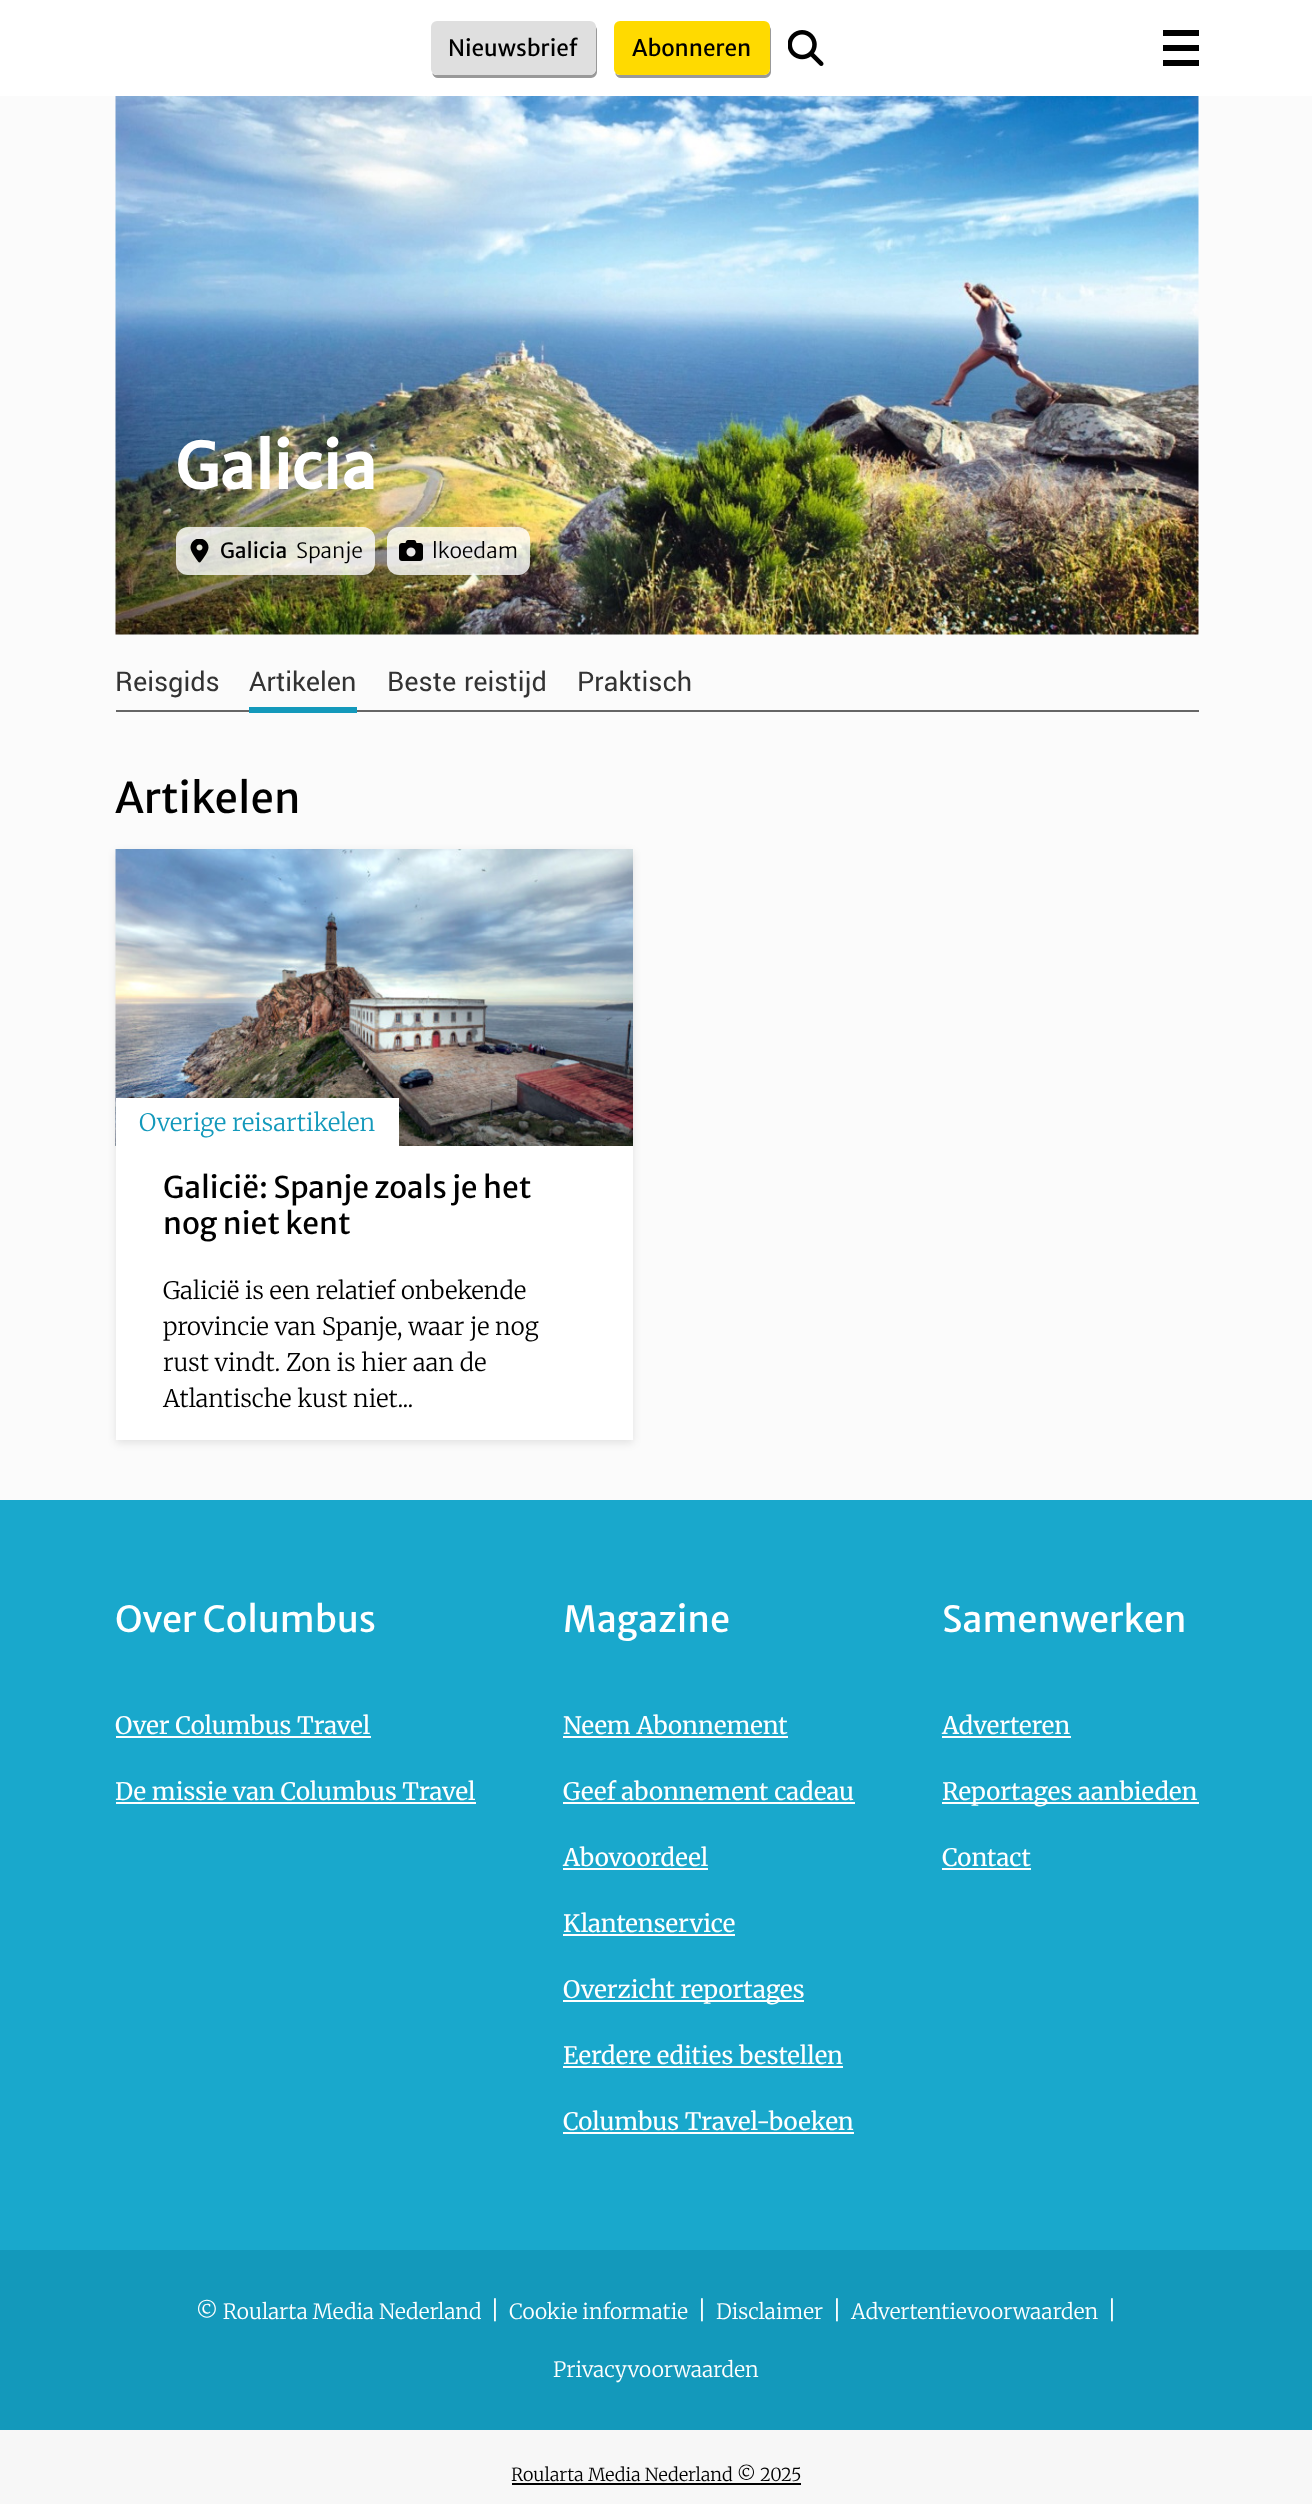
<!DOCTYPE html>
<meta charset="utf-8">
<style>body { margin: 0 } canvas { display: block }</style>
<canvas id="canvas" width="1312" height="2504"></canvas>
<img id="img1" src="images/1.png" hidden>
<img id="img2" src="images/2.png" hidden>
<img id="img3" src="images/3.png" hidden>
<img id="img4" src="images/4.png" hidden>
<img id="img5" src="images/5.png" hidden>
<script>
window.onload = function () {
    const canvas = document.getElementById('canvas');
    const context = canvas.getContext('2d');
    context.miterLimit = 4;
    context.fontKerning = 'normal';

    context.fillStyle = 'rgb(251, 251, 251)';
    context.fillRect(0, 0, 1312, 2504);
    context.fillStyle = 'rgb(255, 255, 255)';
    context.fillRect(0, 0, 1312, 96);
    context.fillStyle = 'rgb(153, 153, 153)';
    context.beginPath();
    context.moveTo(432, 73);
    context.bezierCurveTo(433, 76, 435, 78, 438, 78);
    context.lineTo(591, 78);
    context.bezierCurveTo(594, 78, 597, 75, 597, 72);
    context.lineTo(597, 30);
    context.bezierCurveTo(597, 28, 596, 27, 595, 26);
    context.lineTo(596, 69);
    context.bezierCurveTo(596, 72, 593, 75, 590, 75);
    context.lineTo(436, 75);
    context.bezierCurveTo(435, 75, 433, 74, 432, 73);
    context.closePath();
    context.fill();
    context.fillStyle = 'rgb(223, 223, 223)';
    context.beginPath();
    context.roundRect(431, 21, 165, 54, 6);
    context.fill();
    context.fillStyle = 'rgb(153, 153, 153)';
    context.beginPath();
    context.moveTo(615, 73);
    context.bezierCurveTo(616, 76, 618, 78, 621, 78);
    context.lineTo(765, 78);
    context.bezierCurveTo(768, 78, 771, 75, 771, 72);
    context.lineTo(771, 30);
    context.bezierCurveTo(771, 28, 770, 27, 769, 26);
    context.lineTo(770, 69);
    context.bezierCurveTo(770, 72, 767, 75, 764, 75);
    context.lineTo(620, 75);
    context.bezierCurveTo(618, 75, 616, 74, 615, 73);
    context.closePath();
    context.fill();
    context.fillStyle = 'rgb(255, 218, 0)';
    context.beginPath();
    context.roundRect(614, 21, 156, 54, 6);
    context.fill();
    context.drawImage(document.getElementById('img1'), 788, 30, 36, 36);
    context.fillStyle = 'rgb(0, 0, 0)';
    context.fillRect(1163, 45, 36, 6);
    context.fillRect(1163, 30, 36, 6);
    context.fillRect(1163, 60, 36, 6);
    context.drawImage(document.getElementById('img2'), 115, 96, 1084, 539);
    context.fillStyle = 'rgba(255, 255, 255, 0.8)';
    context.beginPath();
    context.roundRect(176, 527, 199, 48, 12);
    context.fill();
    context.drawImage(document.getElementById('img3'), 190, 539, 19, 24);
    context.beginPath();
    context.roundRect(387, 527, 143, 48, 12);
    context.fill();
    context.drawImage(document.getElementById('img4'), 399, 540, 24, 21);
    context.fillStyle = 'rgb(102, 102, 102)';
    context.fillRect(116, 710, 1083, 2);
    context.fillStyle = 'rgb(19, 153, 187)';
    context.fillRect(249, 707, 108, 6);
    context.fillStyle = 'rgba(0, 0, 0, 0.1)';
    context.filter = 'blur(4.5px)';
    context.beginPath();
    context.rect(116, 852, 517, 591);
    context.fill();
    context.filter = 'none';
    context.fillStyle = 'rgb(255, 255, 255)';
    context.fillRect(116, 1146, 517, 294);
    context.drawImage(document.getElementById('img5'), 115, 849, 518, 297);
    context.fillRect(116, 1098, 283, 48);
    context.fillStyle = 'rgb(25, 168, 204)';
    context.fillRect(0, 1500, 1312, 750);
    context.fillStyle = 'rgb(255, 255, 255)';
    context.fillRect(116, 1736, 255, 2);
    context.fillRect(116, 1802, 360, 2);
    context.fillRect(563, 1736, 225, 2);
    context.fillRect(563, 1802, 292, 2);
    context.fillRect(563, 1868, 145, 2);
    context.fillRect(563, 1934, 172, 2);
    context.fillRect(563, 2000, 241, 2);
    context.fillRect(563, 2066, 280, 2);
    context.fillRect(563, 2132, 291, 2);
    context.fillRect(942, 1736, 129, 2);
    context.fillRect(942, 1802, 257, 2);
    context.fillRect(942, 1868, 89, 2);
    context.fillStyle = 'rgb(19, 153, 187)';
    context.fillRect(0, 2250, 1312, 180);
    context.fillStyle = 'rgb(247, 247, 247)';
    context.fillRect(0, 2430, 1312, 74);
    context.fillStyle = 'rgb(0, 0, 0)';
    context.fillRect(512, 2483, 289, 2);
    context.font = '22.5px Merriweather Sans';
    context.fillText('Nieuwsbrief', 448, 56);
    context.fillText('Abonneren', 632, 56);
    context.font = 'bold 63px Merriweather Sans';
    context.fillStyle = 'rgb(255, 255, 255)';
    context.fillText('Galicia', 175, 489);
    context.font = '21px Merriweather Sans';
    context.fillStyle = 'rgb(0, 0, 0)';
    context.fillText('Galicia', 220, 558);
    context.font = '300 21px Merriweather Sans';
    context.fillText('Spanje', 296, 558);
    context.fillText('lkoedam', 432, 558);
    context.font = '30px Yantramanav';
    context.fillStyle = 'rgb(51, 51, 51)';
    context.fillText('Reisgids', 115, 691);
    context.fillText('Artikelen', 249, 691);
    context.fillText('Beste reistijd', 387, 691);
    context.fillText('Praktisch', 577, 691);
    context.font = '42px Merriweather Sans';
    context.fillStyle = 'rgb(0, 0, 0)';
    context.fillText('Artikelen', 115, 813);
    context.font = '300 24px Merriweather';
    context.fillStyle = 'rgb(19, 153, 187)';
    context.fillText('Overige reisartikelen', 139, 1131);
    context.font = '30px Merriweather Sans';
    context.fillStyle = 'rgb(0, 0, 0)';
    context.fillText('Galicië: Spanje zoals je het', 163, 1198);
    context.fillText('nog niet kent', 163, 1234);
    context.font = '300 24px Merriweather';
    context.fillText('Galicië is een relatief onbekende', 163, 1299);
    context.fillText('provincie van Spanje, waar je nog', 163, 1335);
    context.fillText('rust vindt. Zon is hier aan de', 163, 1371);
    context.fillText('Atlantische kust niet...', 163, 1407);
    context.font = '36px Merriweather Sans';
    context.fillStyle = 'rgb(255, 255, 255)';
    context.fillText('Over Columbus', 115, 1632);
    context.font = '24px Merriweather';
    context.fillText('Over Columbus Travel', 115, 1734);
    context.fillText('De missie van Columbus Travel', 115, 1800);
    context.font = '36px Merriweather Sans';
    context.fillText('Magazine', 563, 1632);
    context.font = '24px Merriweather';
    context.fillText('Neem Abonnement', 563, 1734);
    context.fillText('Geef abonnement cadeau', 563, 1800);
    context.fillText('Abovoordeel', 563, 1866);
    context.fillText('Klantenservice', 563, 1932);
    context.fillText('Overzicht reportages', 563, 1998);
    context.fillText('Eerdere edities bestellen', 563, 2064);
    context.fillText('Columbus Travel-boeken', 563, 2130);
    context.font = '36px Merriweather Sans';
    context.fillText('Samenwerken', 942, 1632);
    context.font = '24px Merriweather';
    context.fillText('Adverteren', 942, 1734);
    context.fillText('Reportages aanbieden', 942, 1800);
    context.fillText('Contact', 942, 1866);
    context.font = '300 21px Merriweather';
    context.fillText('© Roularta Media Nederland', 196, 2319);
    context.font = '300 24px Merriweather Sans';
    context.fillText('|', 490, 2319);
    context.font = '300 21px Merriweather';
    context.fillText('Cookie informatie', 509, 2319);
    context.font = '300 24px Merriweather Sans';
    context.fillText('|', 697, 2319);
    context.font = '300 21px Merriweather';
    context.fillText('Disclaimer', 716, 2319);
    context.font = '300 24px Merriweather Sans';
    context.fillText('|', 832, 2319);
    context.font = '300 21px Merriweather';
    context.fillText('Advertentievoorwaarden', 851, 2319);
    context.font = '300 24px Merriweather Sans';
    context.fillText('|', 1107, 2319);
    context.font = '300 21px Merriweather';
    context.fillText('Privacyvoorwaarden', 553, 2377);
    context.font = '300 18px Merriweather';
    context.fillStyle = 'rgb(0, 0, 0)';
    context.fillText('Roularta Media Nederland © 2025', 511, 2481);
};
</script>
